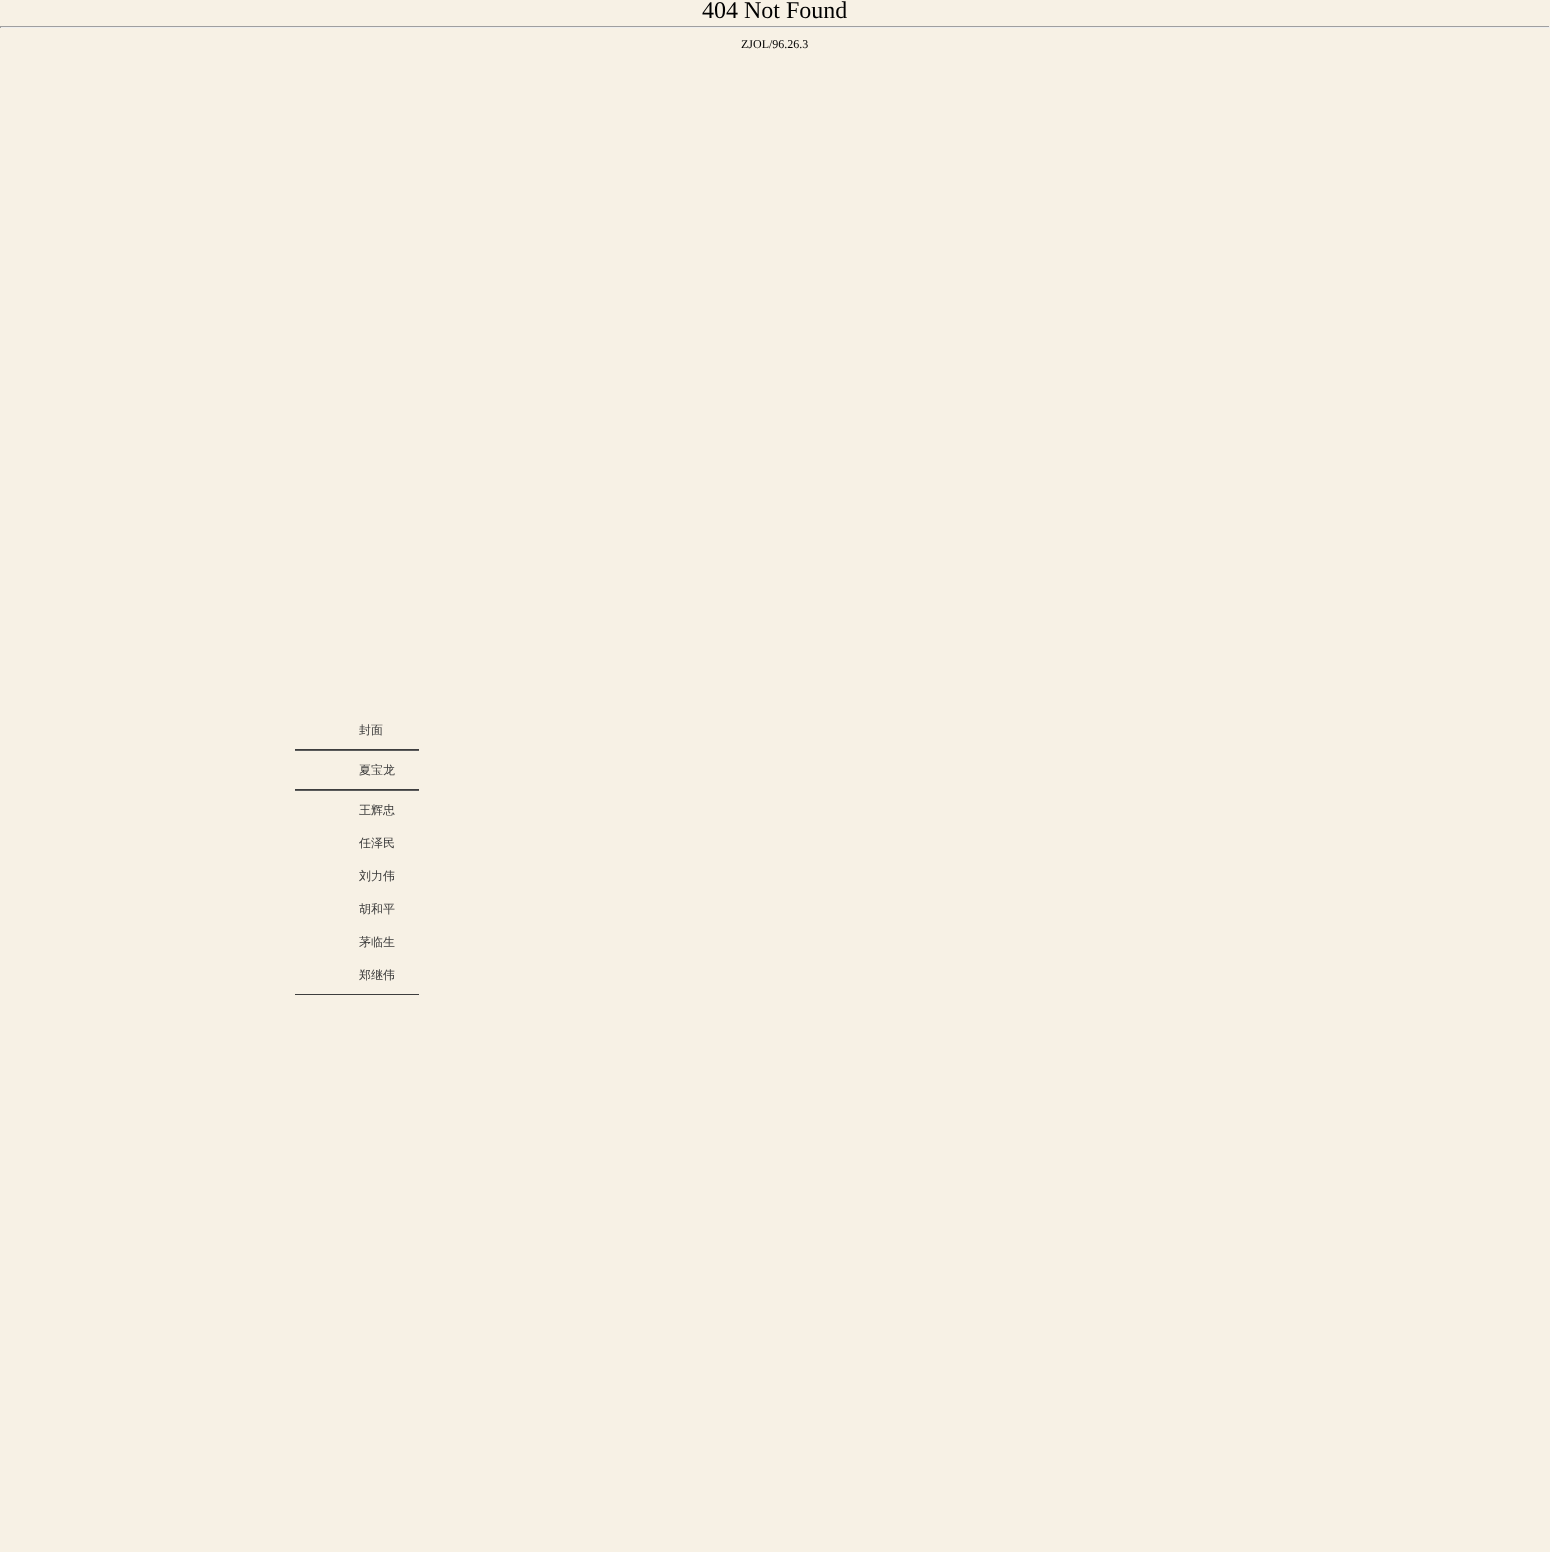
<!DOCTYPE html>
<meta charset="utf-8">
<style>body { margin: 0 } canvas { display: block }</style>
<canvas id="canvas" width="1550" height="1552"></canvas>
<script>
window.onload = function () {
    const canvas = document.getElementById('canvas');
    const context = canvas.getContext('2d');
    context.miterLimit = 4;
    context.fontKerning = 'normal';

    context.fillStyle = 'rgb(247, 241, 229)';
    context.fillRect(0, 0, 1550, 1552);
    context.fillStyle = 'rgb(159, 159, 159)';
    context.fillRect(0, 26, 1550, 1);
    context.fillStyle = 'rgb(238, 238, 238)';
    context.fillRect(1549, 26, 1, 2);
    context.fillRect(0, 27, 1550, 1);
    context.fillStyle = 'rgb(159, 159, 159)';
    context.fillRect(0, 26, 1, 2);
    context.fillStyle = 'rgb(62, 62, 62)';
    context.fillRect(295, 749, 124, 1);
    context.fillStyle = 'rgb(91, 91, 91)';
    context.fillRect(295, 750, 124, 1);
    context.fillStyle = 'rgb(62, 62, 62)';
    context.fillRect(295, 789, 124, 1);
    context.fillStyle = 'rgb(91, 91, 91)';
    context.fillRect(295, 790, 124, 1);
    context.fillStyle = 'rgb(62, 62, 62)';
    context.fillRect(295, 994, 124, 1);
    context.font = '24px Liberation Serif';
    context.fillStyle = 'rgb(0, 0, 0)';
    context.fillText('404 Not Found', 702, 18);
    context.font = '12px Liberation Serif';
    context.fillText('ZJOL/96.26.3', 741, 48);
    context.font = '500 12px WenQuanYi Zen Hei';
    context.fillStyle = 'rgb(59, 59, 59)';
    context.fillText('封面', 359, 734);
    context.fillText('夏宝龙', 359, 774);
    context.fillText('王辉忠', 359, 814);
    context.fillText('任泽民', 359, 847);
    context.fillText('刘力伟', 359, 880);
    context.fillText('胡和平', 359, 913);
    context.fillText('茅临生', 359, 946);
    context.fillText('郑继伟', 359, 979);
};
</script>
